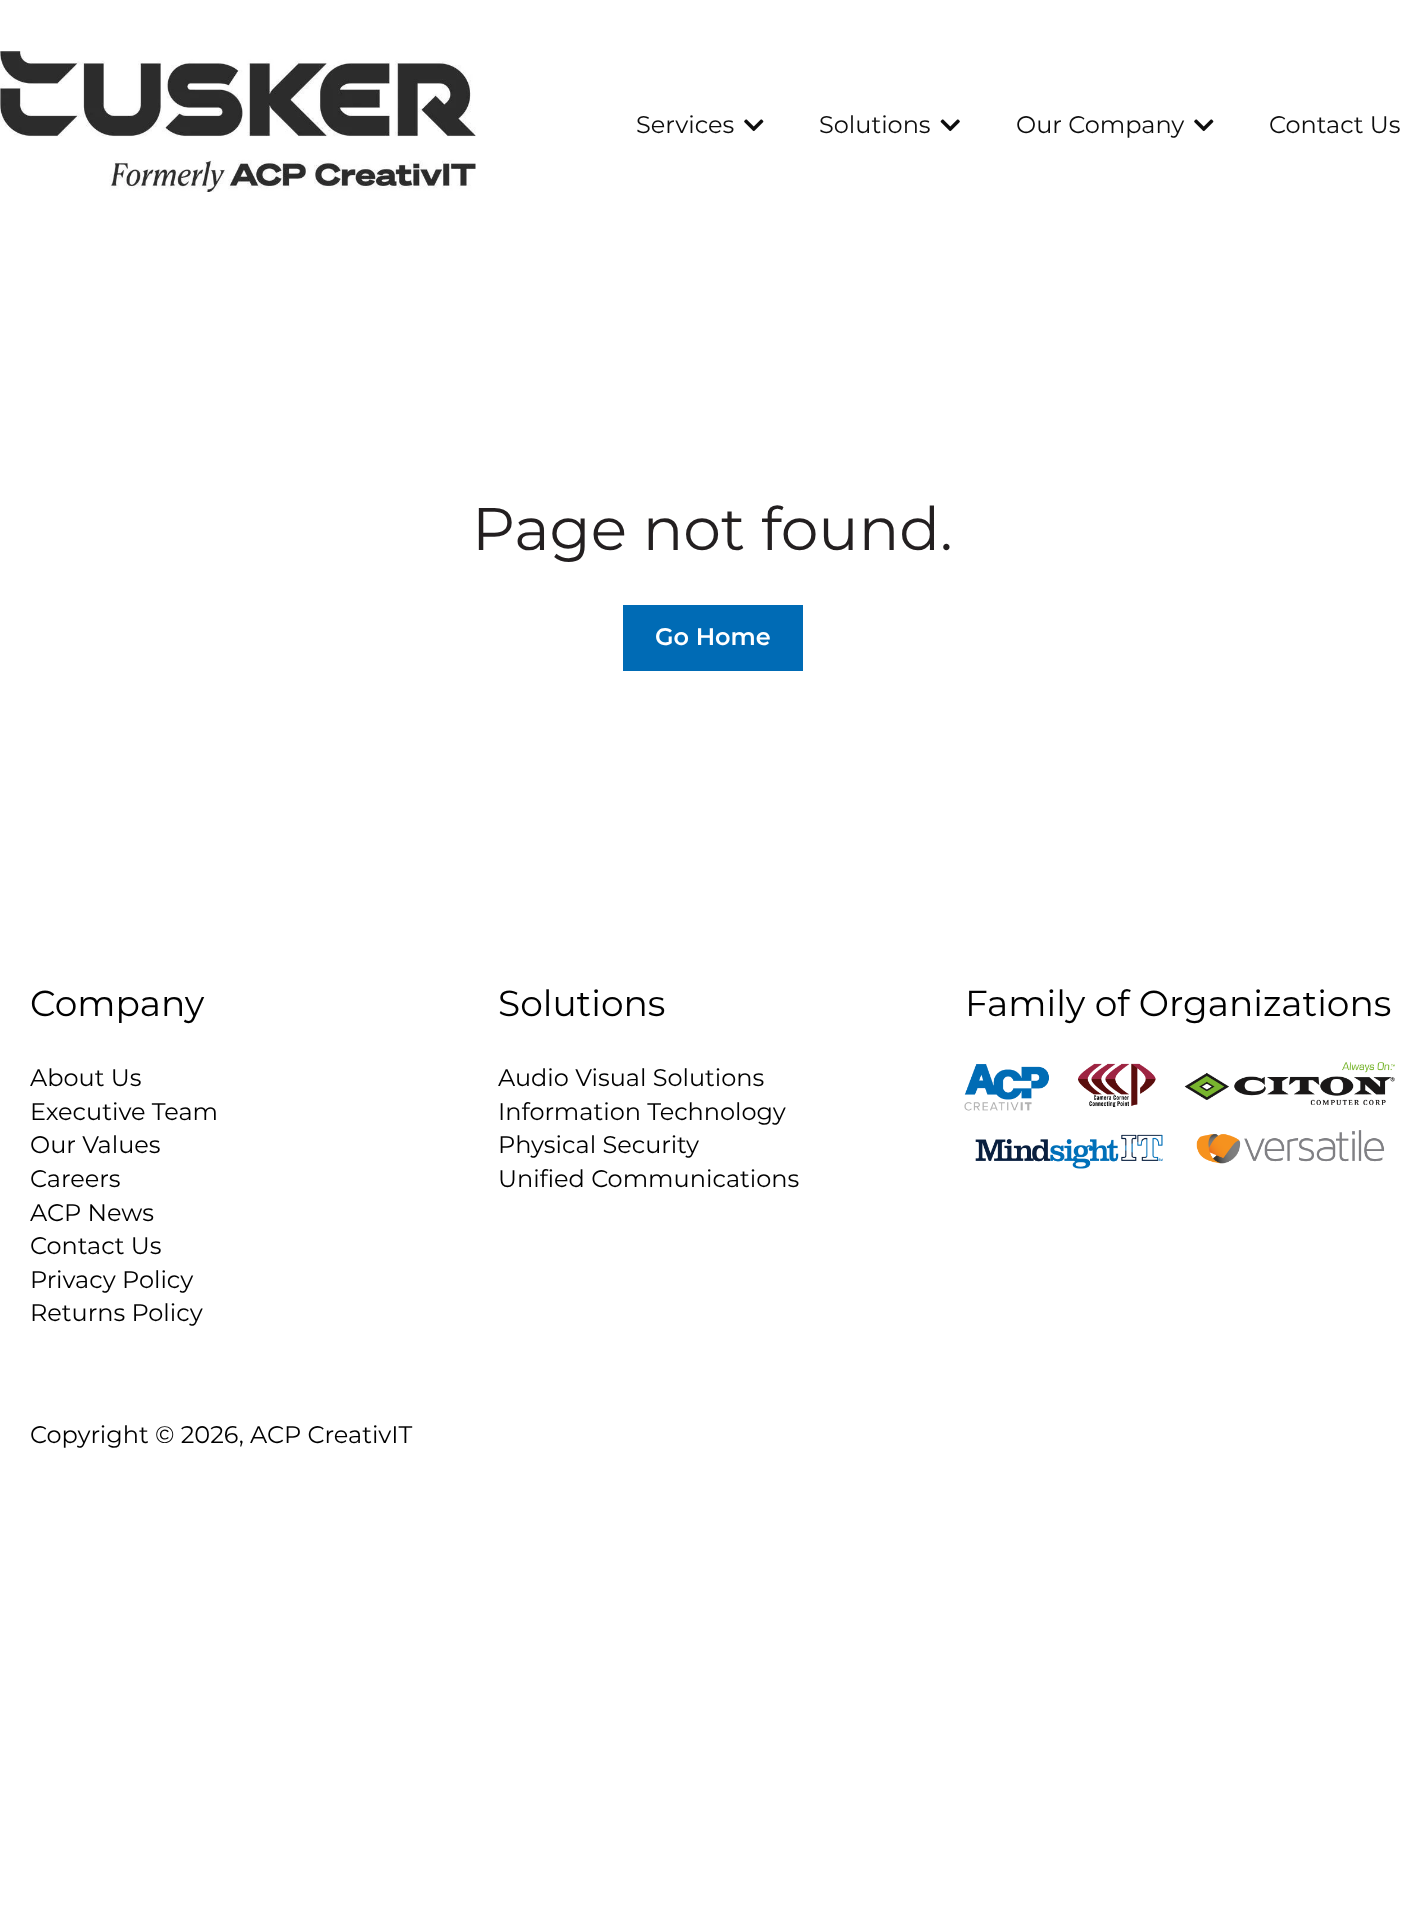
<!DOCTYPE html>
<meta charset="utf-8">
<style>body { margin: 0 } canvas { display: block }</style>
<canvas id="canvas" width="1424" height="1923"></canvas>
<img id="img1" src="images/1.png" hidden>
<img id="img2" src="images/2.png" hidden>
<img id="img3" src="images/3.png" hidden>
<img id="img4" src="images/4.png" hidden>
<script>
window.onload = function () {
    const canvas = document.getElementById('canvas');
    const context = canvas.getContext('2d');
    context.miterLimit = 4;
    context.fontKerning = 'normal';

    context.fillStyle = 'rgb(255, 255, 255)';
    context.fillRect(0, 0, 1424, 1923);
    context.drawImage(document.getElementById('img1'), 0, 51, 476, 141);
    context.drawImage(document.getElementById('img2'), 744, 119, 20, 13);
    context.drawImage(document.getElementById('img3'), 940, 119, 20, 13);
    context.drawImage(document.getElementById('img2'), 1194, 119, 20, 13);
    context.fillStyle = 'rgb(0, 107, 181)';
    context.fillRect(623, 605, 180, 66);
    context.drawImage(document.getElementById('img4'), 964, 1062, 431, 107);
    context.font = '24px Montserrat';
    context.fillStyle = 'rgb(13, 13, 13)';
    context.fillText('Services', 636, 133);
    context.fillText('Solutions', 819, 133);
    context.fillText('Our Company', 1016, 133);
    context.fillText('Contact Us', 1269, 133);
    context.font = '60px Montserrat';
    context.fillStyle = 'rgb(35, 31, 32)';
    context.fillText('Page not found.', 472, 550);
    context.font = '600 24px Montserrat';
    context.fillStyle = 'rgb(255, 255, 255)';
    context.fillText('Go Home', 655, 645);
    context.font = '36px Montserrat';
    context.fillStyle = 'rgb(0, 0, 0)';
    context.fillText('Company', 30, 1016);
    context.font = '24px Montserrat';
    context.fillText('About Us', 30, 1086);
    context.fillText('Executive Team', 30, 1120);
    context.fillText('Our Values', 30, 1153);
    context.fillText('Careers', 30, 1187);
    context.fillText('ACP News', 30, 1221);
    context.fillText('Contact Us', 30, 1254);
    context.fillText('Privacy Policy', 30, 1288);
    context.fillText('Returns Policy', 30, 1321);
    context.font = '36px Montserrat';
    context.fillText('Solutions', 498, 1016);
    context.font = '24px Montserrat';
    context.fillText('Audio Visual Solutions', 498, 1086);
    context.fillText('Information Technology', 498, 1120);
    context.fillText('Physical Security', 498, 1153);
    context.fillText('Unified Communications', 498, 1187);
    context.font = '36px Montserrat';
    context.fillText('Family of Organizations', 965, 1016);
    context.font = '24px Montserrat';
    context.fillText('Copyright © 2026, ACP CreativIT', 30, 1443);
};
</script>
